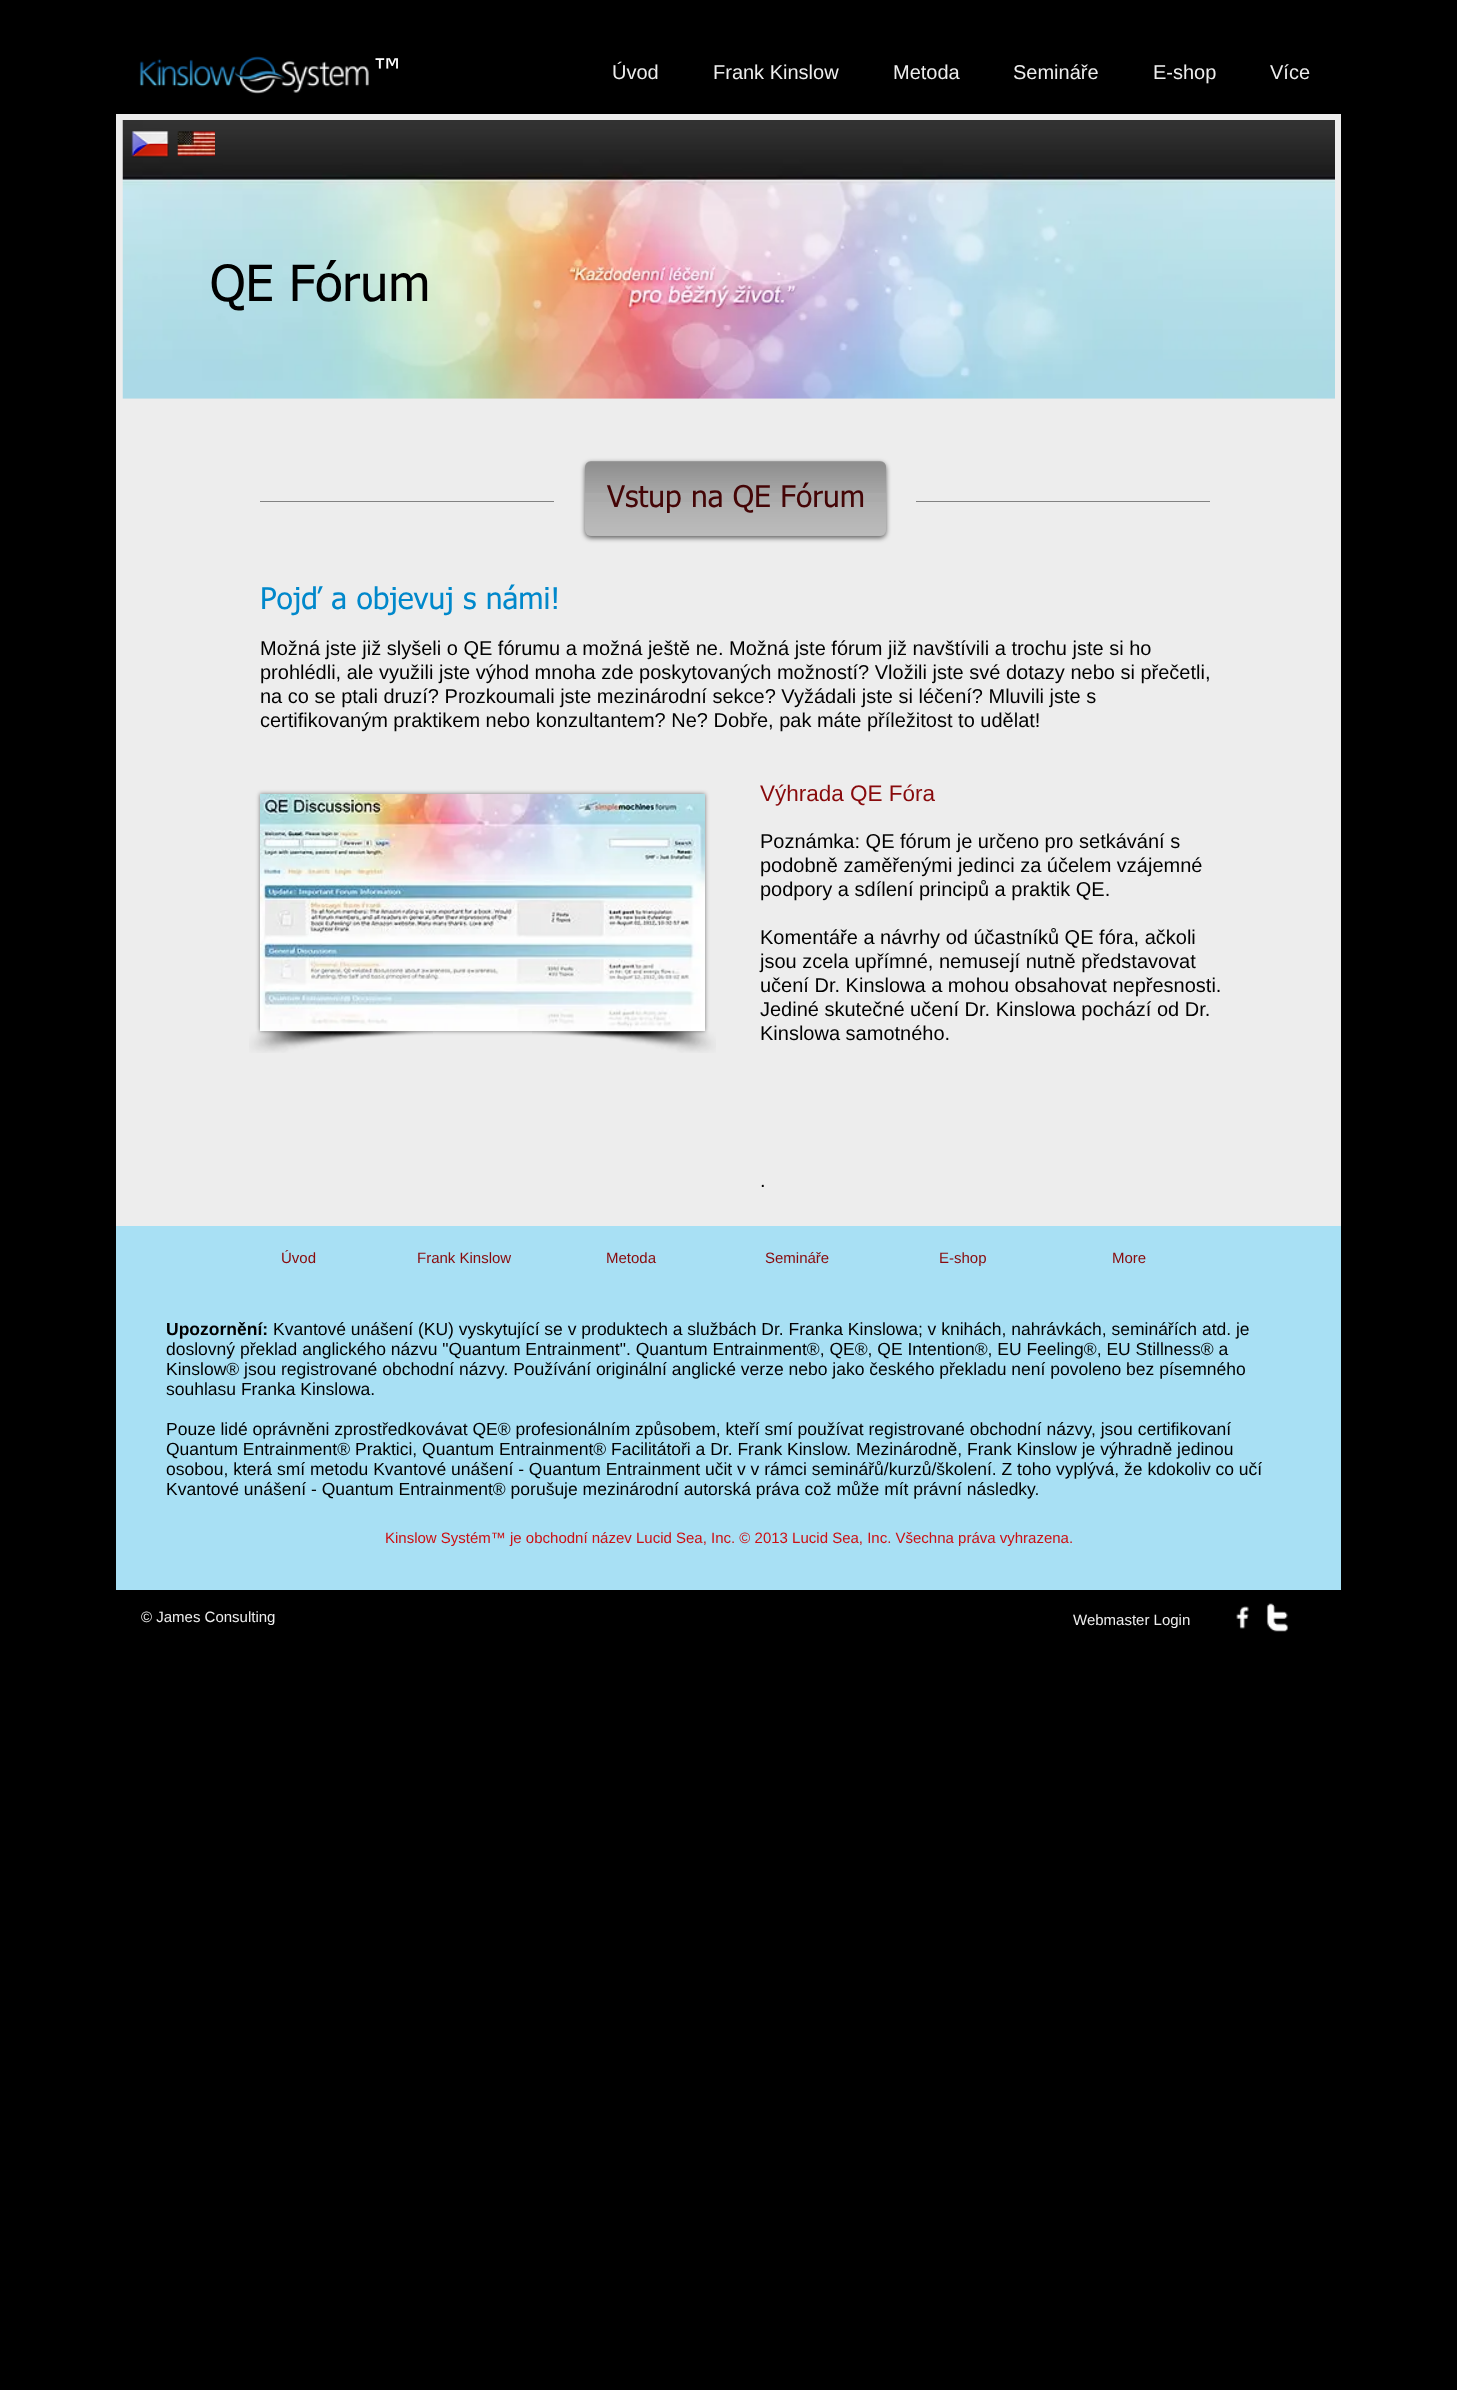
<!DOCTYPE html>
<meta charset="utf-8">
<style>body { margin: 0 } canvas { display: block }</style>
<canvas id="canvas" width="1457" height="2390"></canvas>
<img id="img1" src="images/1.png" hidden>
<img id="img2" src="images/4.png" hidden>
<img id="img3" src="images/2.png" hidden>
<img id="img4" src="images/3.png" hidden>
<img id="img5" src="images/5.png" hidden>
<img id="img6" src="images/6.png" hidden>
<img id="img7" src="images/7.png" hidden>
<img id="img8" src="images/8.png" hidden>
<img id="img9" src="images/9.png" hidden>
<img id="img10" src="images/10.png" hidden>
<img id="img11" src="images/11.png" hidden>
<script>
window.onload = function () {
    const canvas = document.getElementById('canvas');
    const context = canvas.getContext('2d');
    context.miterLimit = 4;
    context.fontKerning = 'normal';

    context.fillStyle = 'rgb(0, 0, 0)';
    context.fillRect(0, 0, 1457, 2390);
    context.drawImage(document.getElementById('img1'), 139, 56, 230, 38);
    context.fillStyle = 'rgb(237, 237, 237)';
    context.fillRect(116, 114, 1225, 1112);
    context.drawImage(document.getElementById('img2'), 122, 120, 1213, 279);
    context.drawImage(document.getElementById('img3'), 131, 131, 38, 27);
    context.drawImage(document.getElementById('img4'), 177, 131, 38, 26);
    context.fillStyle = 'rgb(130, 130, 130)';
    context.fillRect(260, 501, 294, 1);
    context.fillStyle = 'rgba(0, 0, 0, 0.6)';
    context.filter = 'blur(2.5px)';
    context.beginPath();
    context.roundRect(585, 463, 301, 75, 6);
    context.fill();
    context.filter = 'none';
    context.fillStyle = 'rgb(171, 171, 171)';
    context.beginPath();
    context.roundRect(585, 461, 301, 75, 6);
    context.fill();
    context.drawImage(document.getElementById('img5'), 585, 461, 301, 32);
    context.drawImage(document.getElementById('img6'), 585, 502, 301, 34);
    context.fillStyle = 'rgb(130, 130, 130)';
    context.fillRect(916, 501, 294, 1);
    context.fillStyle = 'rgba(0, 0, 0, 0.5)';
    context.filter = 'blur(2px)';
    context.beginPath();
    context.rect(260, 794, 445, 237);
    context.fill();
    context.filter = 'none';
    context.drawImage(document.getElementById('img7'), 260, 793, 445, 238);
    context.drawImage(document.getElementById('img8'), 249, 1031, 184, 22);
    context.drawImage(document.getElementById('img9'), 532, 1031, 184, 22);
    context.fillStyle = 'rgb(168, 224, 244)';
    context.fillRect(116, 1226, 1225, 364);
    context.drawImage(document.getElementById('img10'), 1236, 1606, 13, 23);
    context.drawImage(document.getElementById('img11'), 1266, 1603, 23, 29);
    context.font = '30px tahoma';
    context.fillStyle = 'rgb(255, 255, 255)';
    context.fillText('™', 374, 80);
    context.font = '20px Liberation Sans';
    context.fillStyle = 'rgb(237, 237, 237)';
    context.fillText('Úvod', 612, 79);
    context.fillText('Frank Kinslow', 713, 79);
    context.fillText('Metoda', 893, 79);
    context.fillText('Semináře', 1013, 79);
    context.fillText('E-shop', 1153, 79);
    context.fillText('Více', 1270, 79);
    context.font = '50px tahoma';
    context.fillStyle = 'rgb(0, 0, 0)';
    context.fillText('QE Fórum', 210, 301);
    context.font = '30px tahoma';
    context.fillStyle = 'rgb(68, 5, 6)';
    context.fillText('Vstup na QE Fórum', 607, 507);
    context.fillStyle = 'rgb(0, 136, 203)';
    context.fillText('Pojď a objevuj s námi!', 260, 609);
    context.font = '20px Liberation Sans';
    context.fillStyle = 'rgb(0, 0, 0)';
    context.fillText('Možná jste již slyšeli o QE fórumu a možná ještě ne. Možná jste fórum již navštívili a trochu jste si ho', 260, 655);
    context.fillText('prohlédli, ale využili jste výhod mnoha zde poskytovaných možností? Vložili jste své dotazy nebo si přečetli,', 260, 679);
    context.fillText('na co se ptali druzí? Prozkoumali jste mezinárodní sekce? Vyžádali jste si léčení? Mluvili jste s', 260, 703);
    context.fillText('certifikovaným praktikem nebo konzultantem? Ne? Dobře, pak máte příležitost to udělat!', 260, 727);
    context.font = '22.5px Liberation Sans';
    context.fillStyle = 'rgb(136, 10, 12)';
    context.fillText('Výhrada QE Fóra', 760, 801);
    context.font = '20px Liberation Sans';
    context.fillStyle = 'rgb(0, 0, 0)';
    context.fillText('Poznámka: QE fórum je určeno pro setkávání s', 760, 848);
    context.fillText('podobně zaměřenými jedinci za účelem vzájemné', 760, 872);
    context.fillText('podpory a sdílení principů a praktik QE.', 760, 896);
    context.fillText('Komentáře a návrhy od účastníků QE fóra, ačkoli', 760, 944);
    context.fillText('jsou zcela upřímné, nemusejí nutně představovat', 760, 968);
    context.fillText('učení Dr. Kinslowa a mohou obsahovat nepřesnosti.', 760, 992);
    context.fillText('Jediné skutečné učení Dr. Kinslowa pochází od Dr.', 760, 1016);
    context.fillText('Kinslowa samotného.', 760, 1040);
    context.fillText('.', 760, 1187);
    context.font = '15px Liberation Sans';
    context.fillStyle = 'rgb(136, 10, 12)';
    context.fillText('Úvod', 281, 1263);
    context.fillText('Frank Kinslow', 417, 1263);
    context.fillText('Metoda', 606, 1263);
    context.fillText('Semináře', 765, 1263);
    context.fillText('E-shop', 939, 1263);
    context.fillText('More', 1112, 1263);
    context.font = 'bold 17.5px Liberation Sans';
    context.fillStyle = 'rgb(0, 0, 0)';
    context.fillText('Upozornění:', 166, 1335);
    context.font = '17.5px Liberation Sans';
    context.fillText('Kvantové unášení (KU) vyskytující se v produktech a službách Dr. Franka Kinslowa; v knihách, nahrávkách, seminářích atd. je', 273, 1335);
    context.fillText('doslovný překlad anglického názvu "Quantum Entrainment". Quantum Entrainment®, QE®, QE Intention®, EU Feeling®, EU Stillness® a', 166, 1355);
    context.fillText('Kinslow® jsou registrované obchodní názvy. Používání originální anglické verze nebo jako českého překladu není povoleno bez písemného', 166, 1375);
    context.fillText('souhlasu Franka Kinslowa.', 166, 1395);
    context.fillText('Pouze lidé oprávněni zprostředkovávat QE® profesionálním způsobem, kteří smí používat registrované obchodní názvy, jsou certifikovaní', 166, 1435);
    context.fillText('Quantum Entrainment® Praktici, Quantum Entrainment® Facilitátoři a Dr. Frank Kinslow. Mezinárodně, Frank Kinslow je výhradně jedinou', 166, 1455);
    context.fillText('osobou, která smí metodu Kvantové unášení - Quantum Entrainment učit v v rámci seminářů/kurzů/školení. Z toho vyplývá, že kdokoliv co učí', 166, 1475);
    context.fillText('Kvantové unášení - Quantum Entrainment® porušuje mezinárodní autorská práva což může mít právní následky.', 166, 1495);
    context.font = '15px Liberation Sans';
    context.fillStyle = 'rgb(204, 16, 19)';
    context.fillText('Kinslow Systém™ je obchodní název Lucid Sea, Inc. © 2013 Lucid Sea, Inc. Všechna práva vyhrazena.', 385, 1543);
    context.fillStyle = 'rgb(237, 237, 237)';
    context.fillText('© James Consulting', 141, 1622);
    context.fillText('Webmaster Login', 1073, 1625);
};
</script>
